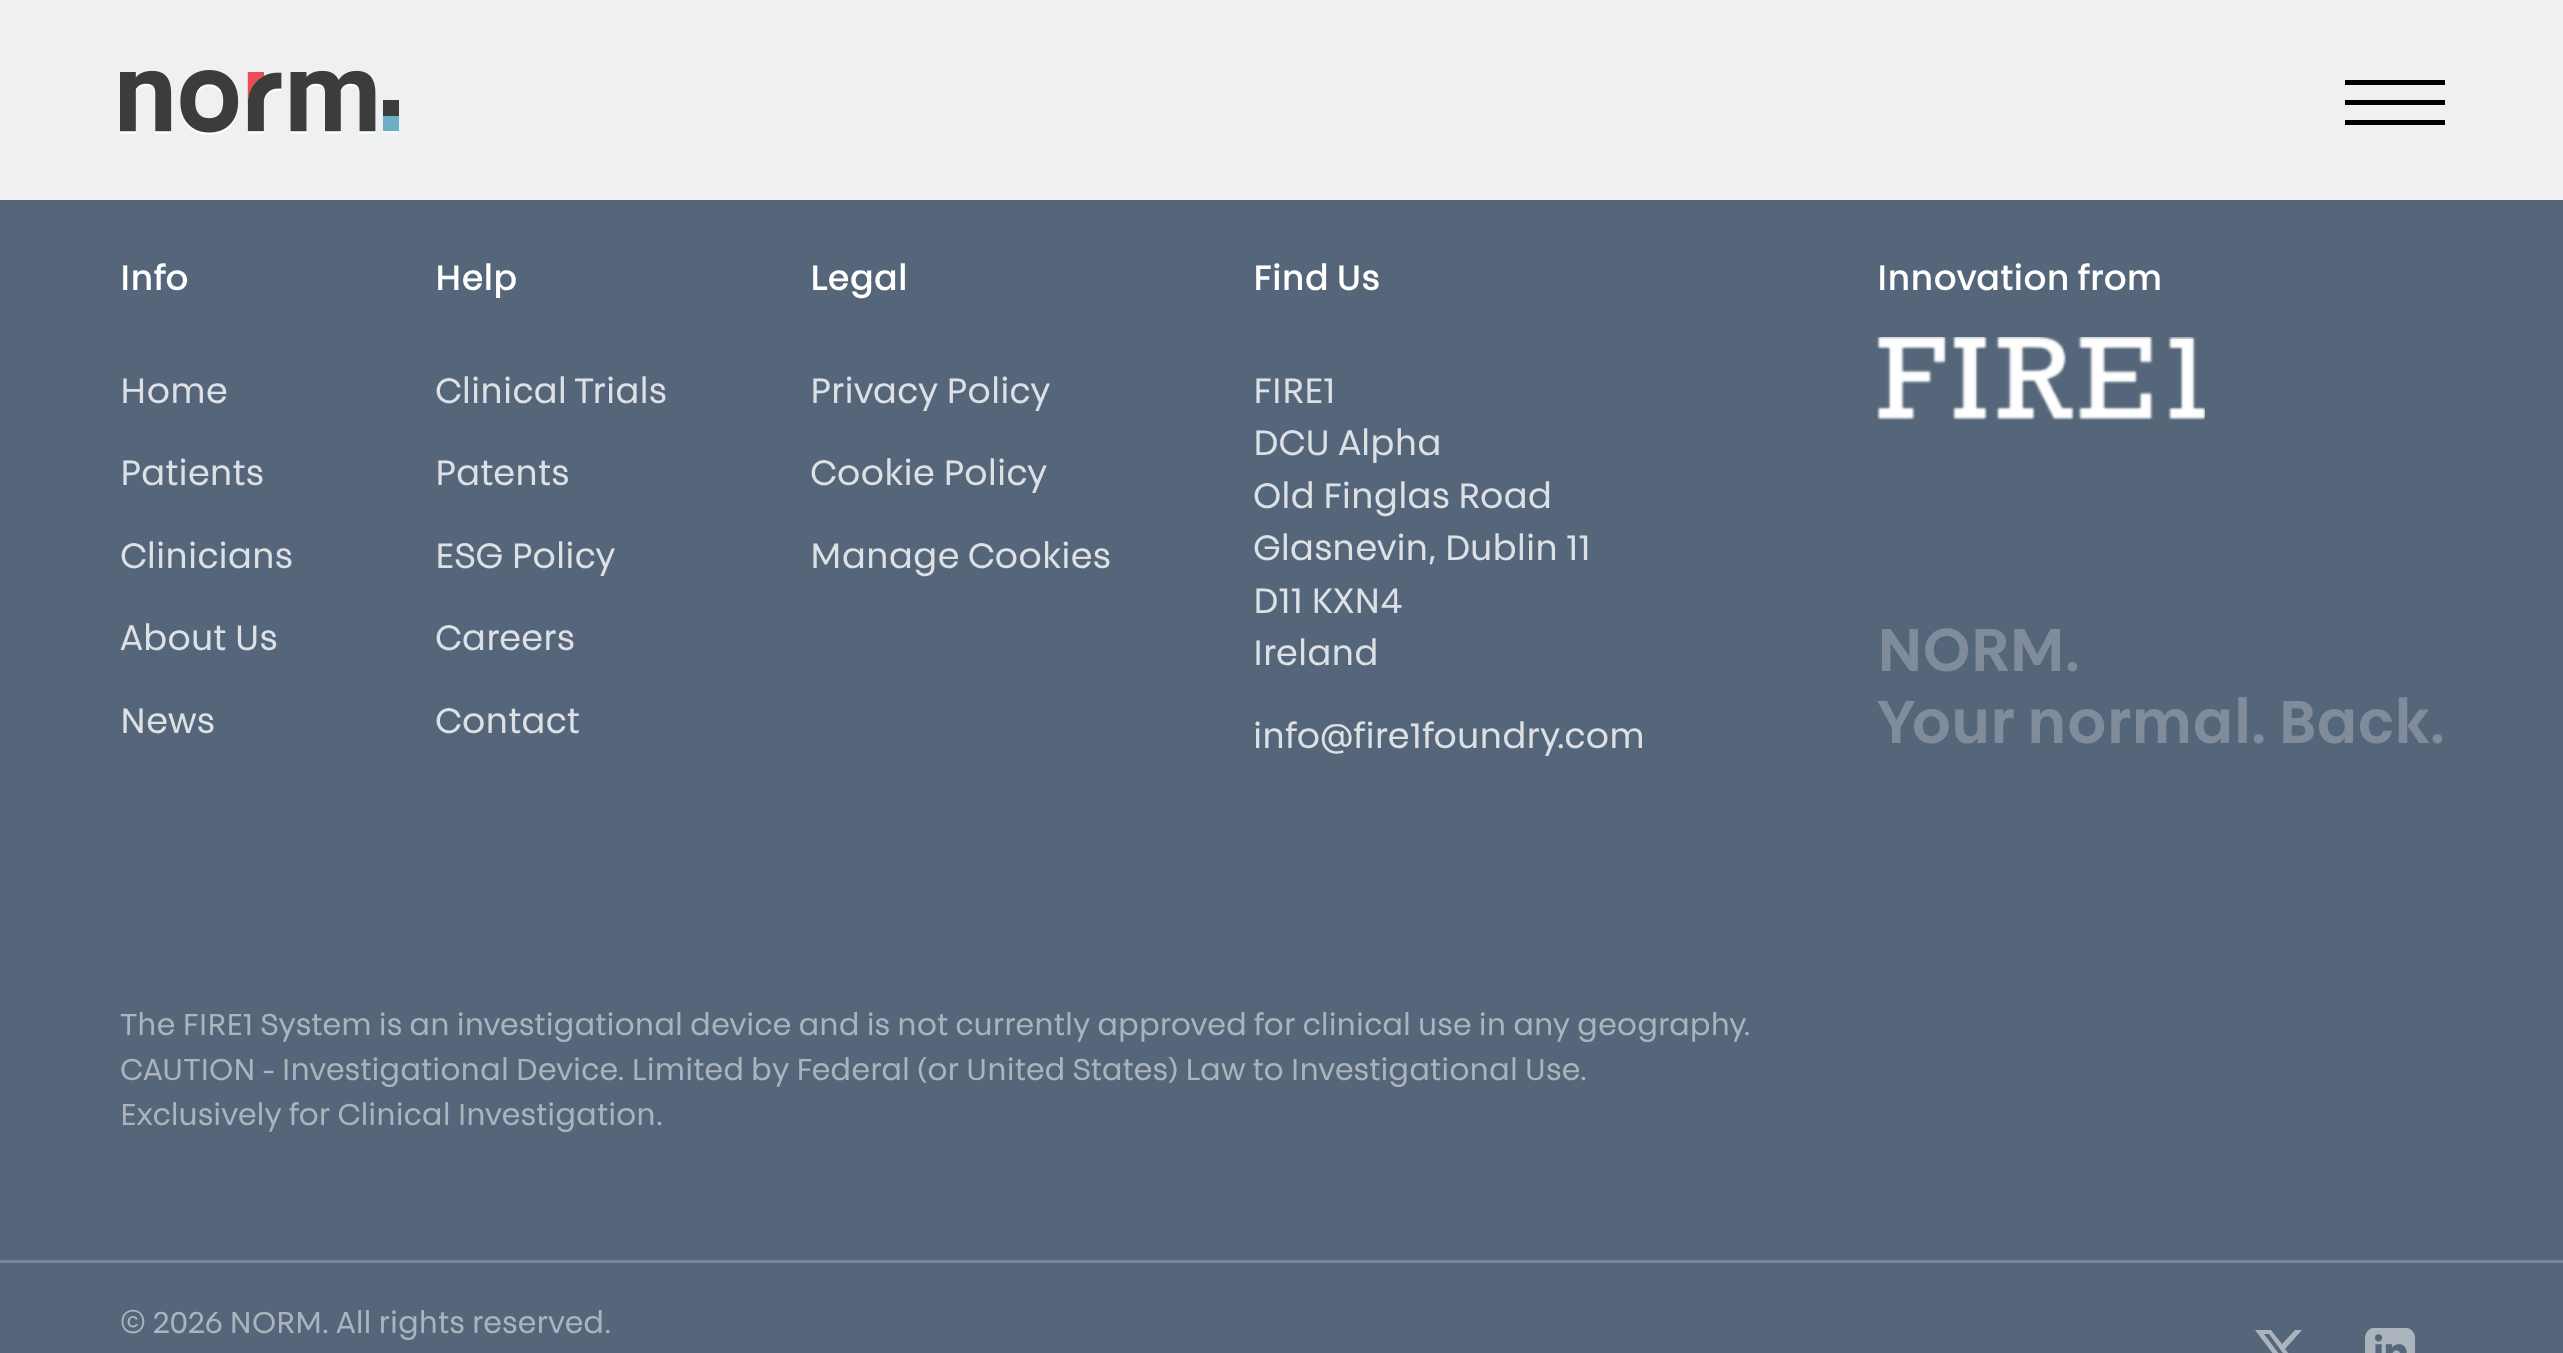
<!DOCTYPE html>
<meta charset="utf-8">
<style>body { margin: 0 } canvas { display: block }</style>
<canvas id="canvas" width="2563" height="1353"></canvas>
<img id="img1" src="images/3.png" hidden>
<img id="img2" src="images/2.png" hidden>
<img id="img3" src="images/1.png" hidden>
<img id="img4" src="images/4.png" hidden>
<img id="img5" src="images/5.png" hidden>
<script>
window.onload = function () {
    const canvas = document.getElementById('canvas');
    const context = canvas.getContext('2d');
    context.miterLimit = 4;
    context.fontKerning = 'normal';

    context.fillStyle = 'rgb(86, 102, 122)';
    context.fillRect(0, 0, 2563, 1353);
    context.fillStyle = 'rgb(238, 240, 242)';
    context.fillRect(0, 0, 2563, 200);
    context.drawImage(document.getElementById('img1'), 120, 74, 279, 61);
    context.drawImage(document.getElementById('img2'), 135, 70, 241, 61);
    context.drawImage(document.getElementById('img3'), 120, 70, 279, 63);
    context.fillStyle = 'rgb(0, 0, 0)';
    context.fillRect(2345, 80, 100, 5);
    context.fillRect(2345, 100, 100, 5);
    context.fillRect(2345, 120, 100, 5);
    context.drawImage(document.getElementById('img4'), 1877, 337, 328, 83);
    context.fillStyle = 'rgb(120, 133, 149)';
    context.fillRect(0, 1260, 2563, 3);
    context.fillStyle = 'rgb(171, 179, 189)';
    context.beginPath();
    context.moveTo(2295, 1330);
    context.lineTo(2302, 1330);
    context.lineTo(2285, 1349);
    context.lineTo(2305, 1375);
    context.lineTo(2290, 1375);
    context.lineTo(2277, 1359);
    context.lineTo(2264, 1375);
    context.lineTo(2256, 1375);
    context.lineTo(2274, 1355);
    context.lineTo(2255, 1330);
    context.lineTo(2271, 1330);
    context.lineTo(2282, 1344);
    context.closePath();
    context.moveTo(2292, 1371);
    context.lineTo(2296, 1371);
    context.lineTo(2269, 1334);
    context.lineTo(2264, 1334);
    context.closePath();
    context.fill();
    context.drawImage(document.getElementById('img5'), 2365, 1328, 50, 25);
    context.font = '500 35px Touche';
    context.fillStyle = 'rgb(255, 255, 255)';
    context.fillText('Info', 120, 290);
    context.font = '35px Touche';
    context.fillStyle = 'rgb(221, 224, 228)';
    context.fillText('Home', 120, 403);
    context.fillText('Patients', 120, 485);
    context.fillText('Clinicians', 120, 568);
    context.fillText('About Us', 120, 650);
    context.fillText('News', 120, 733);
    context.font = '500 35px Touche';
    context.fillStyle = 'rgb(255, 255, 255)';
    context.fillText('Help', 435, 290);
    context.font = '35px Touche';
    context.fillStyle = 'rgb(221, 224, 228)';
    context.fillText('Clinical Trials', 435, 403);
    context.fillText('Patents', 435, 485);
    context.fillText('ESG Policy', 435, 568);
    context.fillText('Careers', 435, 650);
    context.fillText('Contact', 435, 733);
    context.font = '500 35px Touche';
    context.fillStyle = 'rgb(255, 255, 255)';
    context.fillText('Legal', 810, 290);
    context.font = '35px Touche';
    context.fillStyle = 'rgb(221, 224, 228)';
    context.fillText('Privacy Policy', 810, 403);
    context.fillText('Cookie Policy', 810, 485);
    context.fillText('Manage Cookies', 810, 568);
    context.font = '500 35px Touche';
    context.fillStyle = 'rgb(255, 255, 255)';
    context.fillText('Find Us', 1253, 290);
    context.font = '35px Touche';
    context.fillStyle = 'rgb(221, 224, 228)';
    context.fillText('FIRE1', 1253, 403);
    context.fillText('DCU Alpha', 1253, 455);
    context.fillText('Old Finglas Road', 1253, 508);
    context.fillText('Glasnevin, Dublin 11', 1253, 560);
    context.fillText('D11 KXN4', 1253, 613);
    context.fillText('Ireland', 1253, 665);
    context.fillText('info@fire1foundry.com', 1253, 748);
    context.font = '500 35px Touche';
    context.fillStyle = 'rgb(255, 255, 255)';
    context.fillText('Innovation from', 1877, 290);
    context.font = '600 60px Touche';
    context.fillStyle = 'rgb(128, 140, 155)';
    context.fillText('NORM.', 1877, 671);
    context.fillText('Your normal. Back.', 1877, 743);
    context.font = '30px Touche';
    context.fillStyle = 'rgb(171, 179, 189)';
    context.fillText('The FIRE1 System is an investigational device and is not currently approved for clinical use in any geography.', 120, 1035);
    context.fillText('CAUTION - Investigational Device. Limited by Federal (or United States) Law to Investigational Use.', 120, 1080);
    context.fillText('Exclusively for Clinical Investigation.', 120, 1125);
    context.fillText('© 2026 NORM. All rights reserved.', 120, 1333);
};
</script>
